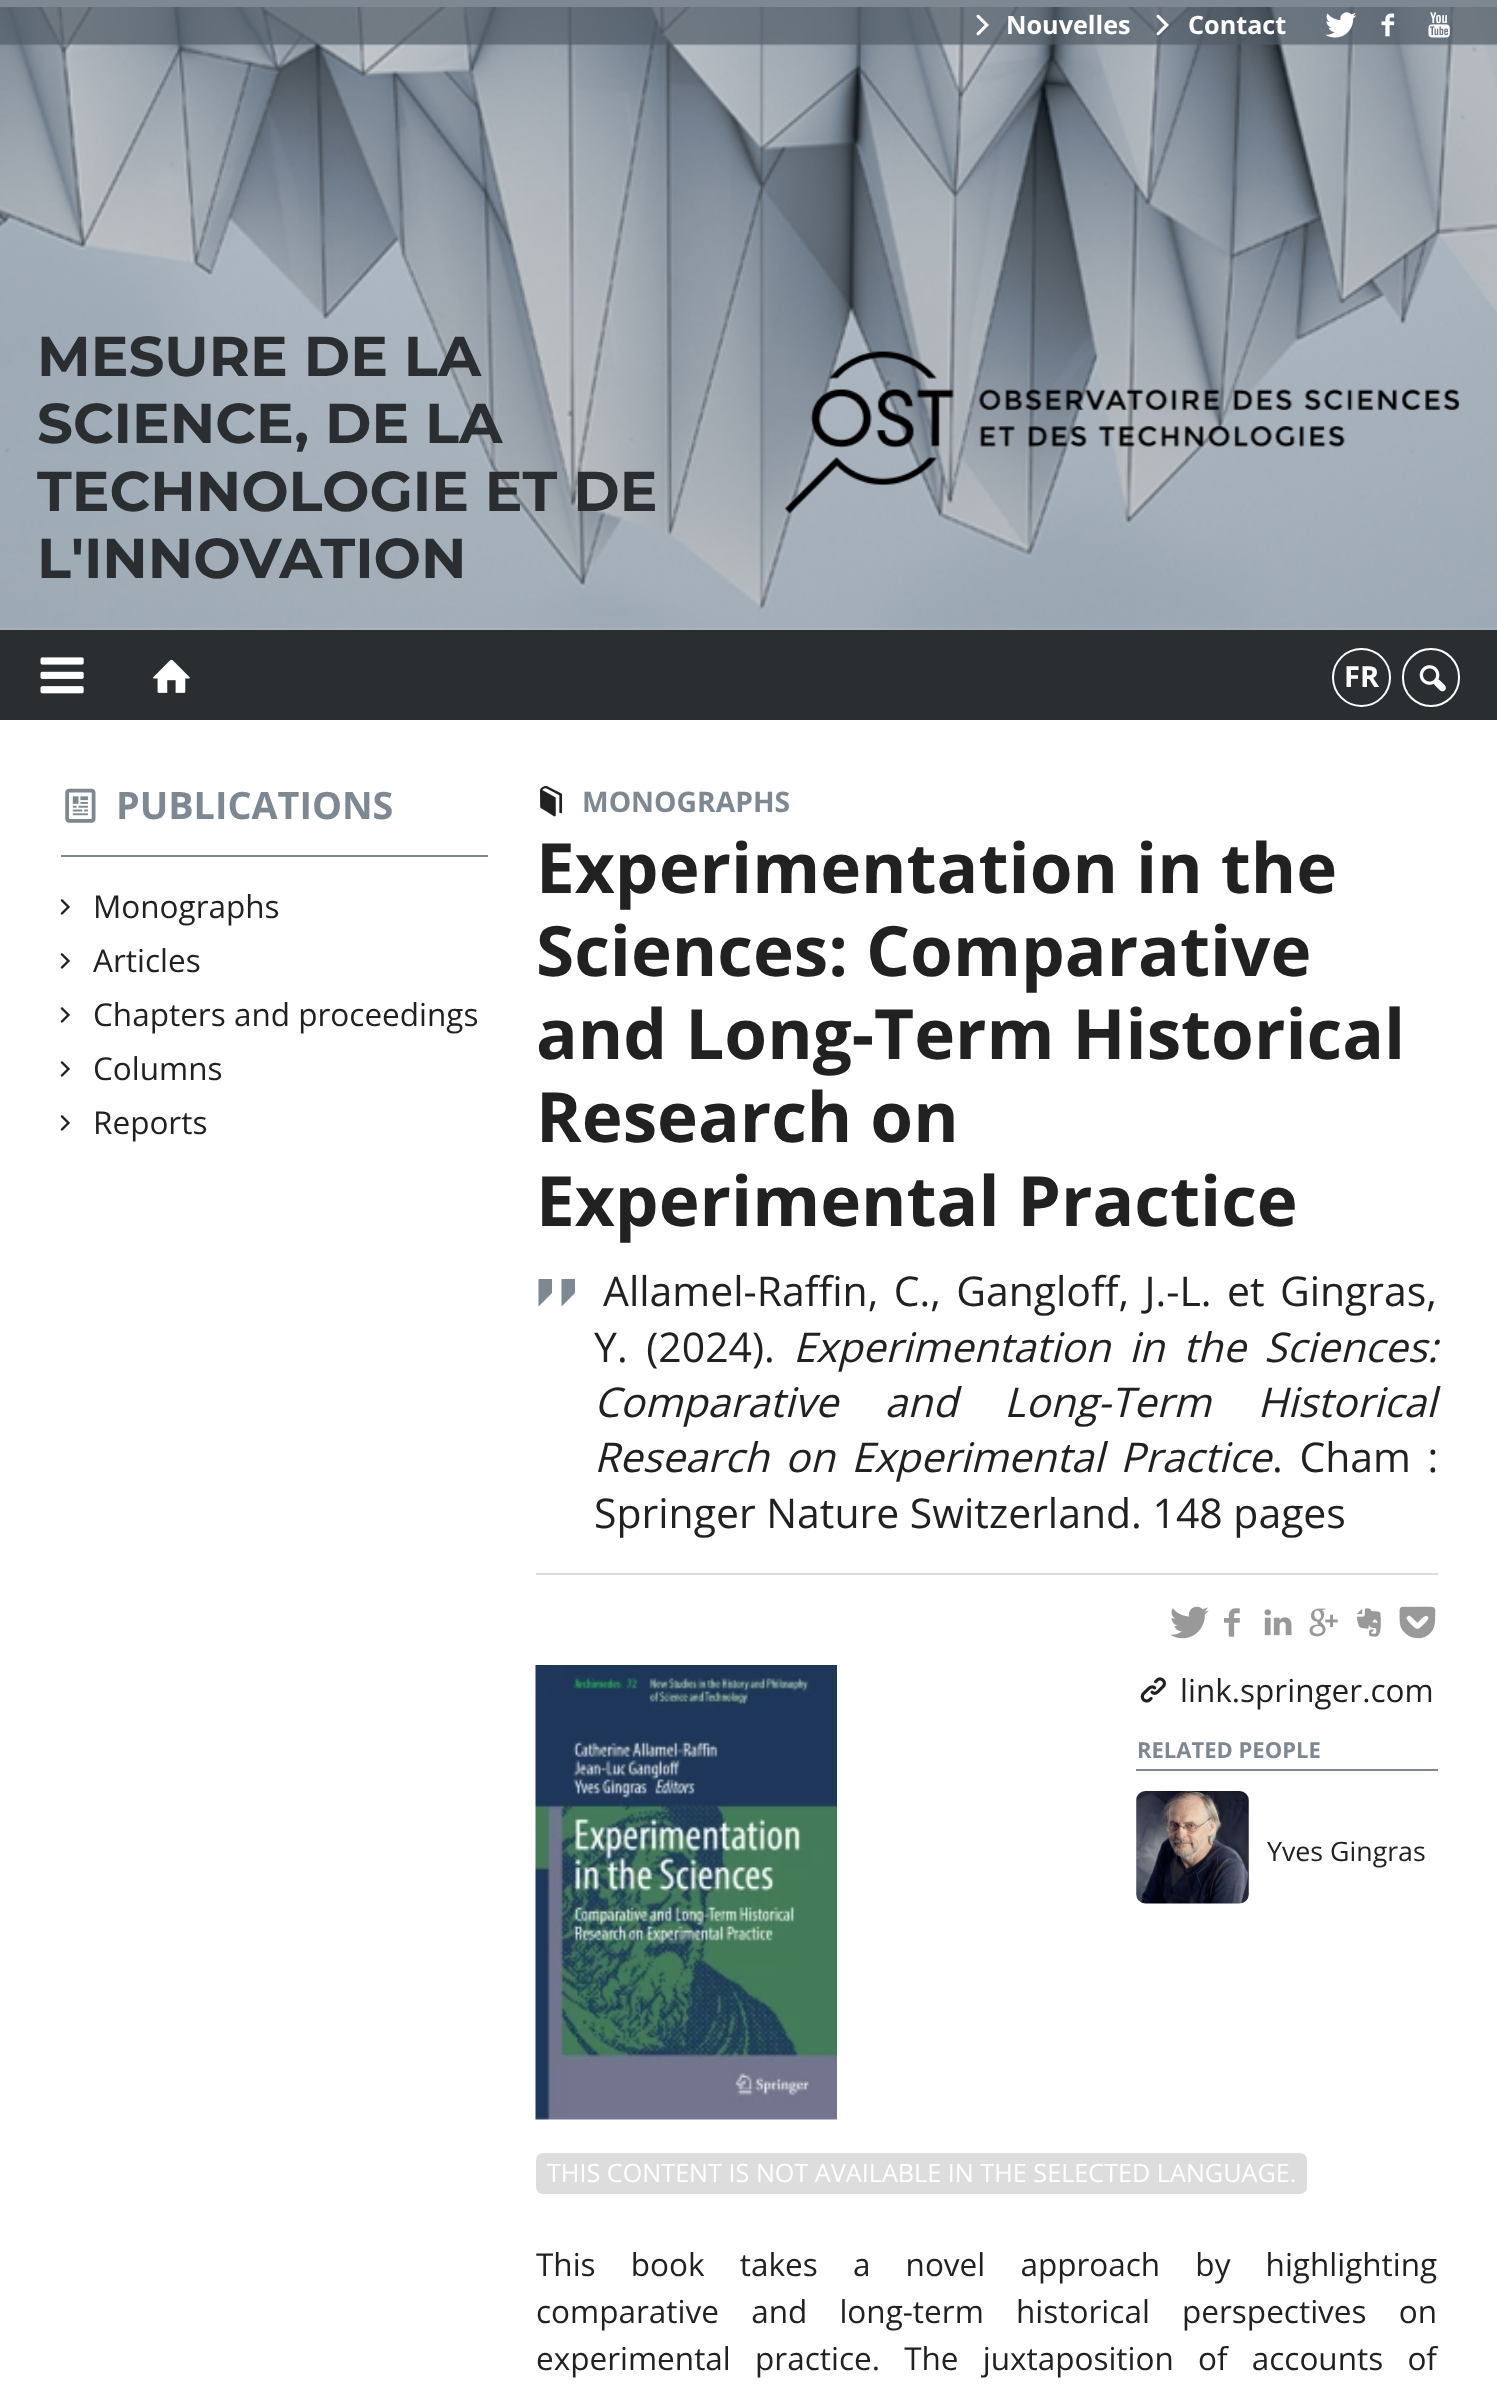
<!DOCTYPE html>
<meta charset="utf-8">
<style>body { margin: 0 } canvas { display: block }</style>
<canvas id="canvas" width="1497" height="2407"></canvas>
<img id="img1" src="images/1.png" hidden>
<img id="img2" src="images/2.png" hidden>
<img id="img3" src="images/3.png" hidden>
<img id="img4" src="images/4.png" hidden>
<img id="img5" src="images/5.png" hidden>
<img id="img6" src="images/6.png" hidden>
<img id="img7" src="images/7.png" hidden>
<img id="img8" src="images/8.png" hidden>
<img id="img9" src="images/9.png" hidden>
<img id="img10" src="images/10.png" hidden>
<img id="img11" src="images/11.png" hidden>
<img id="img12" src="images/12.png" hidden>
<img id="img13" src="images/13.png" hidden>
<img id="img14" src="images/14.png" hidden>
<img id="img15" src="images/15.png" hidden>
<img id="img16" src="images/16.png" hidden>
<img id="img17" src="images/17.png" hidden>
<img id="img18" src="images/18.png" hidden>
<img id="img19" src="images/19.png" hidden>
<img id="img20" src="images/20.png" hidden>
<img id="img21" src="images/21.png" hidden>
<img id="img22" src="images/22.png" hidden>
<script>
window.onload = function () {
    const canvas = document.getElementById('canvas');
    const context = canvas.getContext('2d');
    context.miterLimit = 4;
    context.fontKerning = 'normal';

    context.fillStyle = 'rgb(255, 255, 255)';
    context.fillRect(0, 0, 1497, 2407);
    context.drawImage(document.getElementById('img1'), 0, 7, 1497, 623);
    context.fillStyle = 'rgb(125, 136, 147)';
    context.fillRect(0, 0, 1497, 7);
    context.drawImage(document.getElementById('img2'), 976, 14, 13, 22);
    context.drawImage(document.getElementById('img3'), 1156, 14, 13, 22);
    context.drawImage(document.getElementById('img4'), 1325, 12, 32, 26);
    context.drawImage(document.getElementById('img5'), 1381, 13, 14, 24);
    context.drawImage(document.getElementById('img6'), 1428, 12, 22, 26);
    context.drawImage(document.getElementById('img7'), 785, 351, 675, 163);
    context.fillStyle = 'rgb(43, 46, 48)';
    context.fillRect(0, 630, 1497, 90);
    context.drawImage(document.getElementById('img8'), 40, 657, 44, 37);
    context.drawImage(document.getElementById('img9'), 153, 659, 37, 34);
    context.beginPath();
    context.arc(1361.5, 677.5, 28.5, 0, 2 * Math.PI);
    context.strokeStyle = 'rgb(255, 255, 255)';
    context.lineWidth = 2;
    context.stroke();
    context.beginPath();
    context.roundRect(1403, 649, 56, 57, 28);
    context.stroke();
    context.drawImage(document.getElementById('img10'), 1419, 665, 27, 27);
    context.fillStyle = 'rgb(125, 136, 147)';
    context.fillRect(61, 855, 427, 2);
    context.drawImage(document.getElementById('img11'), 65, 788, 31, 35);
    context.drawImage(document.getElementById('img12'), 60, 899, 10, 16);
    context.drawImage(document.getElementById('img12'), 60, 953, 10, 16);
    context.drawImage(document.getElementById('img12'), 60, 1007, 10, 16);
    context.drawImage(document.getElementById('img12'), 60, 1061, 10, 16);
    context.drawImage(document.getElementById('img12'), 60, 1115, 10, 16);
    context.drawImage(document.getElementById('img13'), 540, 786, 23, 31);
    context.beginPath();
    context.moveTo(538.5, 1279);
    context.lineTo(552, 1279);
    context.lineTo(552, 1293);
    context.lineTo(538.5, 1306.5);
    context.closePath();
    context.moveTo(561.5, 1279);
    context.lineTo(575, 1279);
    context.lineTo(575, 1293);
    context.lineTo(561.5, 1306.5);
    context.closePath();
    context.fill();
    context.fillStyle = 'rgb(221, 221, 221)';
    context.fillRect(536, 1573, 902, 2);
    context.drawImage(document.getElementById('img14'), 1170, 1606, 39, 33);
    context.drawImage(document.getElementById('img15'), 1224, 1608, 16, 29);
    context.drawImage(document.getElementById('img16'), 1264, 1609, 28, 27);
    context.drawImage(document.getElementById('img17'), 1309, 1608, 29, 29);
    context.drawImage(document.getElementById('img18'), 1356, 1608, 25, 29);
    context.drawImage(document.getElementById('img19'), 1399, 1606, 37, 33);
    context.drawImage(document.getElementById('img20'), 535, 1665, 302, 455);
    context.drawImage(document.getElementById('img21'), 1140, 1677, 26, 26);
    context.fillStyle = 'rgb(125, 136, 147)';
    context.fillRect(1136, 1769, 302, 2);
    context.drawImage(document.getElementById('img22'), 1136, 1791, 113, 113);
    context.fillStyle = 'rgb(221, 221, 221)';
    context.beginPath();
    context.roundRect(536, 2153, 771, 41, 7);
    context.fill();
    context.font = 'bold 25.2px Open Sans';
    context.fillStyle = 'rgb(255, 255, 255)';
    context.fillText('Nouvelles', 1006, 34);
    context.fillText('Contact', 1188, 34);
    context.font = 'bold 56.25px Montserrat';
    context.fillStyle = 'rgb(43, 46, 48)';
    context.fillText('MESURE DE LA', 37, 376);
    context.fillText('SCIENCE, DE LA', 37, 443);
    context.fillText('TECHNOLOGIE ET DE', 37, 511);
    context.fillText('L\'INNOVATION', 37, 578);
    context.font = 'bold 29px Open Sans';
    context.fillStyle = 'rgb(255, 255, 255)';
    context.fillText('FR', 1344, 687);
    context.font = 'bold 37.75px Open Sans';
    context.fillStyle = 'rgb(125, 136, 147)';
    context.fillText('PUBLICATIONS', 116, 819);
    context.font = '31.5px Open Sans';
    context.fillStyle = 'rgb(33, 33, 33)';
    context.fillText('Monographs', 93, 918);
    context.fillText('Articles', 93, 972);
    context.fillText('Chapters and proceedings', 93, 1026);
    context.fillText('Columns', 93, 1080);
    context.fillText('Reports', 93, 1134);
    context.font = 'bold 28.25px Open Sans';
    context.fillStyle = 'rgb(125, 136, 147)';
    context.fillText('MONOGRAPHS', 582, 812);
    context.font = 'bold 69.25px Open Sans';
    context.fillStyle = 'rgb(33, 33, 33)';
    context.fillText('Experimentation in the', 536, 893);
    context.fillText('Sciences: Comparative', 536, 976);
    context.fillText('and Long-Term Historical', 536, 1059);
    context.fillText('Research on', 536, 1142);
    context.fillText('Experimental Practice', 536, 1226);
    context.wordSpacing = '4.75px';
    context.font = '40.95px Open Sans';
    context.fillText('Allamel-Raffin, C., Gangloff, J.-L. et Gingras,', 603, 1306);
    context.wordSpacing = '8px';
    context.fillText('Y. (2024).', 594, 1362);
    context.font = 'italic 40.95px Open Sans';
    context.fillText('Experimentation in the Sciences:', 793, 1362);
    context.wordSpacing = '36px';
    context.fillText('Comparative and Long-Term Historical', 594, 1417);
    context.wordSpacing = '5.5px';
    context.fillText('Research on Experimental Practice', 594, 1472);
    context.wordSpacing = '6px';
    context.font = '40.95px Open Sans';
    context.fillText('. Cham :', 1272, 1472);
    context.wordSpacing = '0px';
    context.fillText('Springer Nature Switzerland. 148 pages', 594, 1528);
    context.font = '31.5px Open Sans';
    context.fillText('link.springer.com', 1180, 1702);
    context.font = 'bold 22px Open Sans';
    context.fillStyle = 'rgb(125, 136, 147)';
    context.fillText('RELATED PEOPLE', 1137, 1758);
    context.font = '26.75px Open Sans';
    context.fillStyle = 'rgb(33, 33, 33)';
    context.fillText('Yves Gingras', 1267, 1861);
    context.font = '25.2px Open Sans';
    context.fillStyle = 'rgb(255, 255, 255)';
    context.fillText('THIS CONTENT IS NOT AVAILABLE IN THE SELECTED LANGUAGE.', 547, 2182);
    context.wordSpacing = '27px';
    context.font = '31.5px Open Sans';
    context.fillStyle = 'rgb(33, 33, 33)';
    context.fillText('This book takes a novel approach by highlighting', 536, 2276);
    context.wordSpacing = '24px';
    context.fillText('comparative and long-term historical perspectives on', 536, 2323);
    context.wordSpacing = '16px';
    context.fillText('experimental practice. The juxtaposition of accounts of', 536, 2370);
};
</script>
